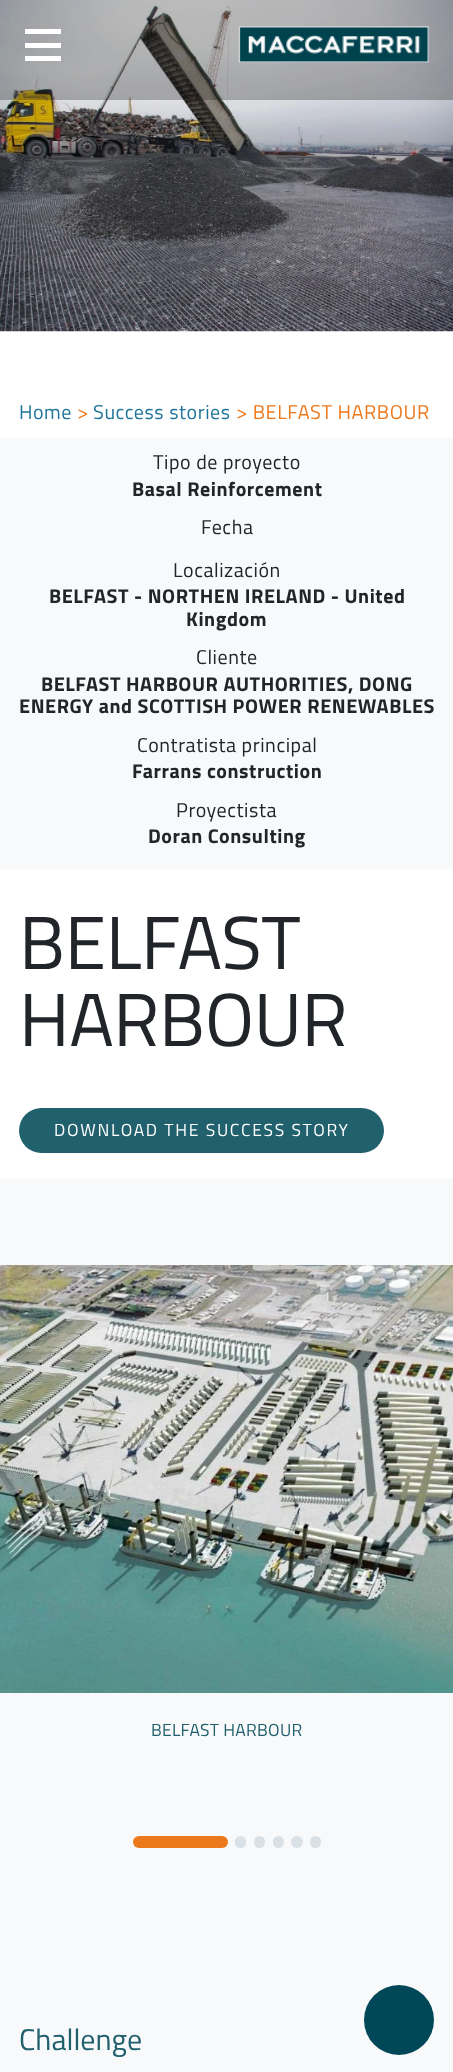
<!DOCTYPE html>
<meta charset="utf-8">
<style>body { margin: 0 } canvas { display: block }</style>
<canvas id="canvas" width="453" height="2072"></canvas>
<img id="img1" src="images/2.png" hidden>
<img id="img2" src="images/1.png" hidden>
<img id="img3" src="images/3.png" hidden>
<script>
window.onload = function () {
    const canvas = document.getElementById('canvas');
    const context = canvas.getContext('2d');
    context.miterLimit = 4;
    context.fontKerning = 'normal';

    context.fillStyle = 'rgb(255, 255, 255)';
    context.fillRect(0, 0, 453, 2072);
    context.drawImage(document.getElementById('img1'), 0, 0, 453, 332);
    context.fillStyle = 'rgba(28, 28, 28, 0.3)';
    context.fillRect(0, 0, 453, 100);
    context.fillStyle = 'rgb(255, 255, 255)';
    context.fillRect(25, 29, 36, 5);
    context.fillRect(25, 43, 36, 5);
    context.fillRect(25, 56, 36, 5);
    context.drawImage(document.getElementById('img2'), 238, 26, 191, 37);
    context.fillStyle = 'rgb(248, 249, 250)';
    context.fillRect(0, 438, 453, 431);
    context.fillStyle = 'rgb(33, 96, 109)';
    context.beginPath();
    context.roundRect(19, 1108, 365, 45, 22.5);
    context.fill();
    context.fillStyle = 'rgb(248, 249, 250)';
    context.fillRect(0, 1178, 453, 894);
    context.drawImage(document.getElementById('img3'), 0, 1265, 453, 428);
    context.fillStyle = 'rgb(237, 121, 29)';
    context.beginPath();
    context.roundRect(133, 1836, 95, 12, 6);
    context.fill();
    context.fillStyle = 'rgb(217, 224, 230)';
    context.beginPath();
    context.roundRect(235, 1836, 11, 12, 5.5);
    context.fill();
    context.beginPath();
    context.roundRect(254, 1836, 11, 12, 5.5);
    context.fill();
    context.beginPath();
    context.roundRect(273, 1836, 11, 12, 5.5);
    context.fill();
    context.beginPath();
    context.arc(297, 1842, 6, 0, 2 * Math.PI);
    context.fill();
    context.beginPath();
    context.roundRect(310, 1836, 11, 12, 5.5);
    context.fill();
    context.fillStyle = 'rgb(0, 72, 87)';
    context.beginPath();
    context.arc(399, 2020, 35, 0, 2 * Math.PI);
    context.fill();
    context.letterSpacing = '0.55px';
    context.font = '20px Titillium Web';
    context.fillStyle = 'rgb(33, 117, 155)';
    context.fillText('Home', 19, 419);
    context.fillStyle = 'rgb(237, 121, 29)';
    context.fillText('>', 77, 419);
    context.fillStyle = 'rgb(33, 117, 155)';
    context.fillText('Success stories', 93, 419);
    context.fillStyle = 'rgb(237, 121, 29)';
    context.fillText('> BELFAST HARBOUR', 236, 419);
    context.fillStyle = 'rgb(33, 36, 41)';
    context.fillText('Tipo de proyecto', 153, 469);
    context.font = 'bold 20px Titillium Web';
    context.fillText('Basal Reinforcement', 132, 496);
    context.font = '20px Titillium Web';
    context.fillText('Fecha', 201, 534);
    context.fillText('Localización', 173, 577);
    context.font = 'bold 20px Titillium Web';
    context.fillText('BELFAST - NORTHEN IRELAND - United', 49, 603);
    context.fillText('Kingdom', 186, 626);
    context.font = '20px Titillium Web';
    context.fillText('Cliente', 196, 664);
    context.font = 'bold 20px Titillium Web';
    context.fillText('BELFAST HARBOUR AUTHORITIES, DONG', 41, 691);
    context.fillText('ENERGY and SCOTTISH POWER RENEWABLES', 19, 713);
    context.font = '20px Titillium Web';
    context.fillText('Contratista principal', 137, 752);
    context.font = 'bold 20px Titillium Web';
    context.fillText('Farrans construction', 132, 778);
    context.font = '20px Titillium Web';
    context.fillText('Proyectista', 176, 817);
    context.font = 'bold 20px Titillium Web';
    context.fillText('Doran Consulting', 148, 843);
    context.letterSpacing = '-0.5px';
    context.font = '75px Titillium Web';
    context.fillText('BELFAST', 19, 969);
    context.fillText('HARBOUR', 19, 1046);
    context.letterSpacing = '1.7px';
    context.font = '17.5px Titillium Web';
    context.fillStyle = 'rgb(255, 255, 255)';
    context.fillText('DOWNLOAD THE SUCCESS STORY', 54, 1136);
    context.letterSpacing = '0.25px';
    context.fillStyle = 'rgb(32, 95, 108)';
    context.fillText('BELFAST HARBOUR', 151, 1736);
    context.letterSpacing = '0px';
    context.font = '30px Titillium Web';
    context.fillText('Challenge', 19, 2050);
};
</script>
